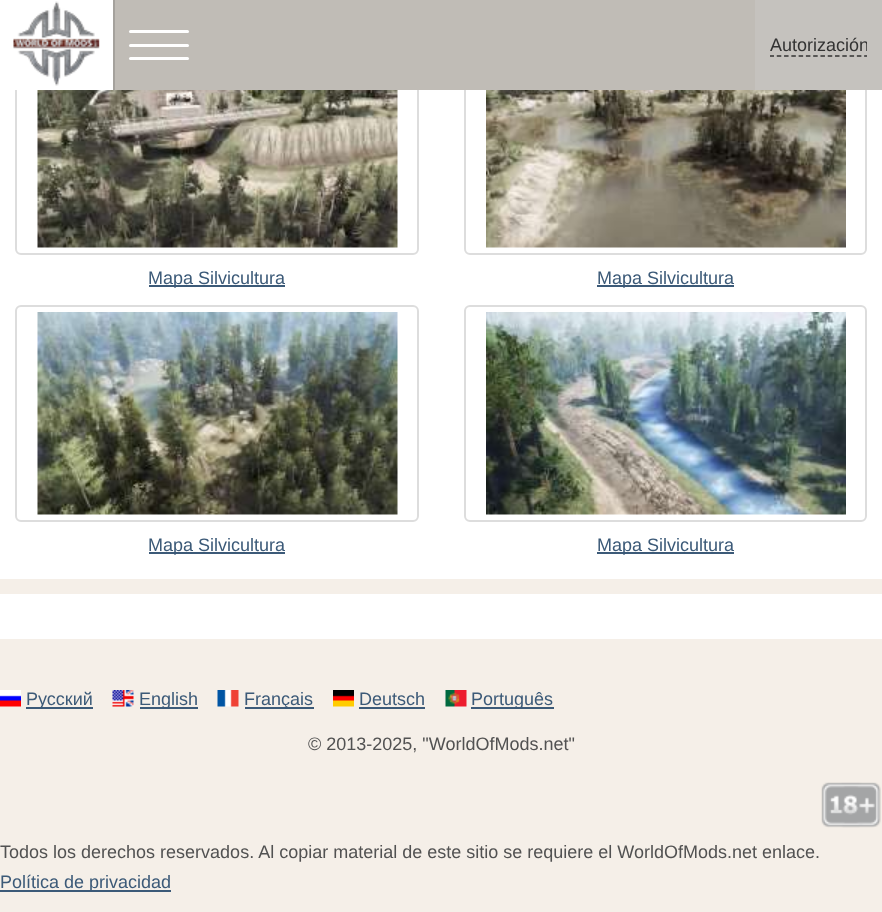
<!DOCTYPE html>
<meta charset="utf-8">
<style>body { margin: 0 } canvas { display: block }</style>
<canvas id="canvas" width="882" height="912"></canvas>
<img id="img1" src="images/1.png" hidden>
<img id="img2" src="images/2.png" hidden>
<img id="img3" src="images/3.png" hidden>
<img id="img4" src="images/4.png" hidden>
<img id="img5" src="images/5.png" hidden>
<img id="img6" src="images/6.png" hidden>
<img id="img7" src="images/7.png" hidden>
<img id="img8" src="images/8.png" hidden>
<img id="img9" src="images/9.png" hidden>
<img id="img10" src="images/10.png" hidden>
<img id="img11" src="images/11.png" hidden>
<script>
window.onload = function () {
    const canvas = document.getElementById('canvas');
    const context = canvas.getContext('2d');
    context.miterLimit = 4;
    context.fontKerning = 'normal';

    context.fillStyle = 'rgb(245, 239, 232)';
    context.fillRect(0, 0, 882, 912);
    context.fillStyle = 'rgb(255, 255, 255)';
    context.fillRect(0, 90, 882, 489);
    context.beginPath();
    context.roundRect(16, 39, 402, 215, 5);
    context.strokeStyle = 'rgb(221, 221, 221)';
    context.lineWidth = 2;
    context.stroke();
    context.fillRect(0, 0, 113, 90);
    context.fillStyle = 'rgb(165, 162, 157)';
    context.fillRect(113, 0, 2, 90);
    context.drawImage(document.getElementById('img1'), 13, 1, 87, 85);
    context.beginPath();
    context.roundRect(465, 39, 401, 215, 5);
    context.stroke();
    context.fillStyle = 'rgb(192, 188, 182)';
    context.fillRect(115, 0, 640, 90);
    context.fillStyle = 'rgb(255, 255, 255)';
    context.beginPath();
    context.roundRect(129, 30, 60, 3, 1.5);
    context.fill();
    context.beginPath();
    context.roundRect(129, 44, 60, 3, 1.5);
    context.fill();
    context.beginPath();
    context.roundRect(129, 57, 60, 3, 1.5);
    context.fill();
    context.fillStyle = 'rgb(197, 194, 190)';
    context.fillRect(755, 0, 127, 90);
    context.save();
    context.beginPath();
    context.rect(770, 15, 97, 60);
    context.clip();
    context.beginPath();
    context.moveTo(769.5, 56);
    context.lineTo(868.5, 56);
    context.strokeStyle = 'rgb(51, 51, 51)';
    context.lineWidth = 1.5;
    context.setLineDash([4.5, 2.78]);
    context.stroke();
    context.restore();
    context.drawImage(document.getElementById('img2'), 37, 90, 361, 158);
    context.fillStyle = 'rgb(60, 90, 120)';
    context.fillRect(149, 285, 136, 2);
    context.drawImage(document.getElementById('img3'), 486, 90, 360, 158);
    context.fillRect(597, 285, 137, 2);
    context.beginPath();
    context.roundRect(16, 306, 402, 215, 5);
    context.stroke();
    context.drawImage(document.getElementById('img4'), 37, 312, 361, 203);
    context.fillRect(149, 552, 136, 2);
    context.beginPath();
    context.roundRect(465, 306, 401, 215, 5);
    context.stroke();
    context.drawImage(document.getElementById('img5'), 486, 312, 360, 203);
    context.fillRect(597, 552, 137, 2);
    context.fillStyle = 'rgb(255, 255, 255)';
    context.fillRect(0, 594, 882, 45);
    context.drawImage(document.getElementById('img6'), 0, 690, 21, 17);
    context.fillStyle = 'rgb(60, 90, 120)';
    context.fillRect(26, 707, 67, 2);
    context.drawImage(document.getElementById('img7'), 112, 690, 22, 17);
    context.fillRect(140, 707, 58, 2);
    context.drawImage(document.getElementById('img8'), 217, 690, 22, 17);
    context.fillRect(245, 707, 69, 2);
    context.drawImage(document.getElementById('img9'), 333, 690, 21, 17);
    context.fillRect(359, 707, 66, 2);
    context.drawImage(document.getElementById('img10'), 445, 690, 22, 17);
    context.fillRect(471, 707, 83, 2);
    context.drawImage(document.getElementById('img11'), 821, 782, 60, 46);
    context.fillRect(0, 890, 171, 2);
    context.save();
    context.beginPath();
    context.rect(770, 15, 97, 60);
    context.clip();
    context.font = '18px Liberation Sans';
    context.fillStyle = 'rgb(51, 51, 51)';
    context.fillText('Autorización', 770, 51);
    context.restore();
    context.font = '18px Liberation Sans';
    context.fillText('Mapa Silvicultura', 148, 284);
    context.fillText('Mapa Silvicultura', 597, 284);
    context.fillText('Mapa Silvicultura', 148, 551);
    context.fillText('Mapa Silvicultura', 597, 551);
    context.fillText('Русский', 26, 705);
    context.fillText('English', 139, 705);
    context.fillText('Français', 244, 705);
    context.fillText('Deutsch', 359, 705);
    context.fillText('Português', 471, 705);
    context.fillStyle = 'rgb(82, 82, 82)';
    context.fillText('© 2013-2025, "WorldOfMods.net"', 308, 750);
    context.fillText('Todos los derechos reservados. Al copiar material de este sitio se requiere el WorldOfMods.net enlace.', 0, 858);
    context.fillStyle = 'rgb(60, 90, 120)';
    context.fillText('Política de privacidad', 0, 888);
};
</script>
